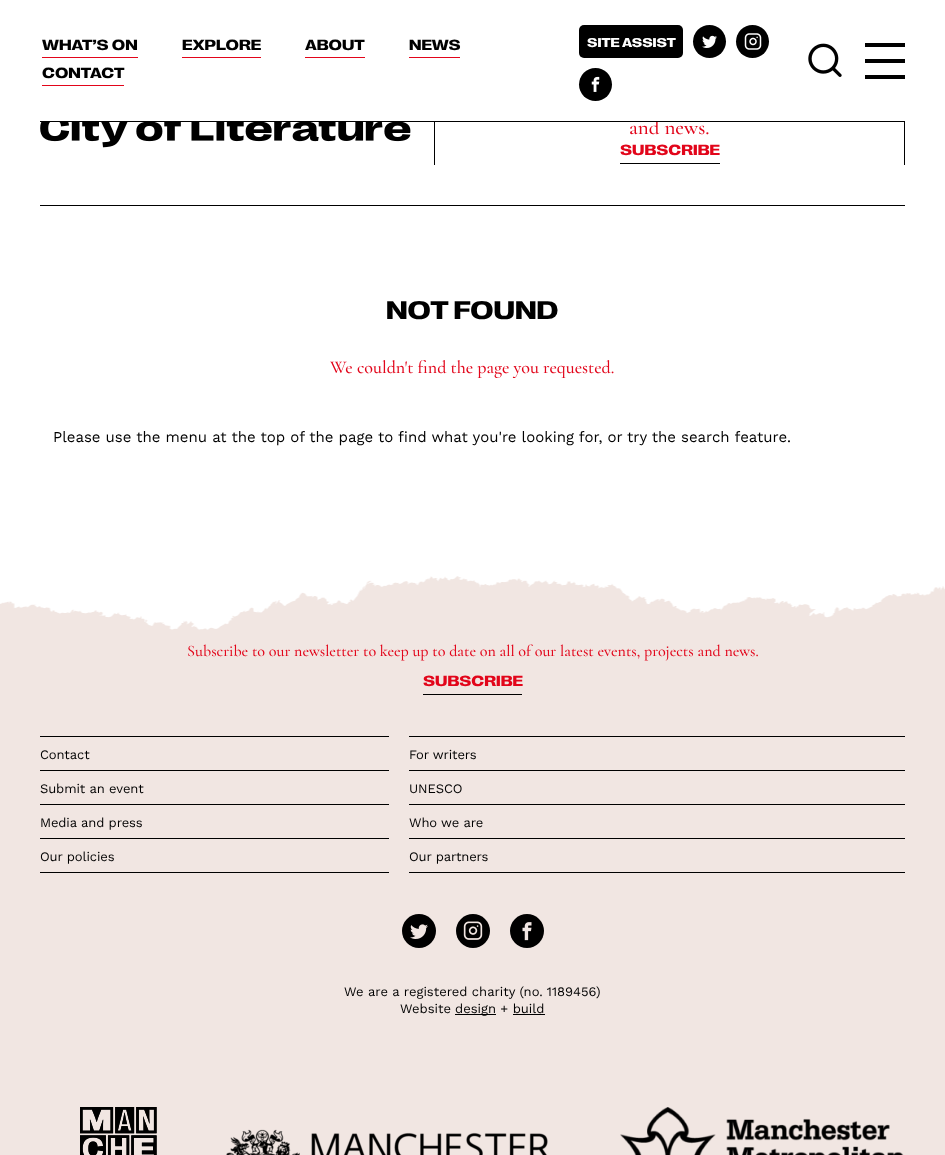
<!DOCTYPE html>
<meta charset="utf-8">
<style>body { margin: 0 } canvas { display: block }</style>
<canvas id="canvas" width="945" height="1155"></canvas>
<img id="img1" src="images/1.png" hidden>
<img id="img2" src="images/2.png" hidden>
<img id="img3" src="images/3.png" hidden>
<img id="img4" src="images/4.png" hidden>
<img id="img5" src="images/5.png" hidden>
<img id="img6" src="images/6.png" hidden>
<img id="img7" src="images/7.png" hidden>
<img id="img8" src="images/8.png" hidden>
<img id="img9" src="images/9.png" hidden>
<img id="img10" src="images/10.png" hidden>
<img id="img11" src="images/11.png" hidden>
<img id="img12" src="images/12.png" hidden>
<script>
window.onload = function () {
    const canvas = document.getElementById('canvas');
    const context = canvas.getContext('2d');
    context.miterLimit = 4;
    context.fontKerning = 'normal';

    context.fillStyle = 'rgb(255, 255, 255)';
    context.fillRect(0, 0, 945, 1155);
    context.fillStyle = 'rgb(226, 5, 26)';
    context.fillRect(42, 57, 96, 1);
    context.fillRect(182, 57, 79, 1);
    context.fillRect(305, 57, 60, 1);
    context.fillRect(409, 57, 51, 1);
    context.fillRect(42, 85, 82, 1);
    context.fillStyle = 'rgb(0, 0, 0)';
    context.beginPath();
    context.roundRect(579, 25, 104, 33, 5);
    context.fill();
    context.beginPath();
    context.arc(709.5, 41.5, 16.5, 0, 2 * Math.PI);
    context.fill();
    context.drawImage(document.getElementById('img1'), 702, 35, 15, 13);
    context.beginPath();
    context.arc(752.5, 41.5, 16.5, 0, 2 * Math.PI);
    context.fill();
    context.drawImage(document.getElementById('img2'), 744, 33, 18, 17);
    context.beginPath();
    context.arc(595.5, 84.5, 16.5, 0, 2 * Math.PI);
    context.fill();
    context.drawImage(document.getElementById('img3'), 591, 76, 9, 16);
    context.drawImage(document.getElementById('img4'), 808, 43, 34, 34);
    context.fillRect(865, 43, 40, 4);
    context.fillRect(865, 59, 40, 4);
    context.fillRect(865, 75, 40, 4);
    context.drawImage(document.getElementById('img5'), 40, 122, 371, 26);
    context.fillRect(904, 122, 1, 43);
    context.fillRect(434, 122, 1, 43);
    context.fillRect(620, 163, 100, 1);
    context.fillRect(40, 205, 865, 1);
    context.fillStyle = 'rgb(241, 230, 226)';
    context.fillRect(0, 632, 945, 523);
    context.drawImage(document.getElementById('img6'), 0, 576, 945, 56);
    context.fillStyle = 'rgb(0, 0, 0)';
    context.fillRect(423, 694, 99, 1);
    context.fillRect(40, 736, 349, 1);
    context.fillRect(40, 770, 349, 1);
    context.fillRect(40, 804, 349, 1);
    context.fillRect(40, 838, 349, 1);
    context.fillRect(40, 872, 349, 1);
    context.fillRect(409, 736, 496, 1);
    context.fillRect(409, 770, 496, 1);
    context.fillRect(409, 804, 496, 1);
    context.fillRect(409, 838, 496, 1);
    context.fillRect(409, 872, 496, 1);
    context.beginPath();
    context.arc(419, 931, 17, 0, 2 * Math.PI);
    context.fill();
    context.drawImage(document.getElementById('img7'), 410, 924, 18, 15);
    context.beginPath();
    context.arc(473, 931, 17, 0, 2 * Math.PI);
    context.fill();
    context.drawImage(document.getElementById('img8'), 463, 921, 20, 19);
    context.beginPath();
    context.arc(527, 931, 17, 0, 2 * Math.PI);
    context.fill();
    context.drawImage(document.getElementById('img9'), 522, 922, 10, 19);
    context.fillRect(455, 1014, 41, 1);
    context.fillRect(513, 1014, 32, 1);
    context.drawImage(document.getElementById('img10'), 80, 1107, 77, 48);
    context.drawImage(document.getElementById('img11'), 226, 1129, 322, 26);
    context.drawImage(document.getElementById('img12'), 620, 1107, 284, 48);
    context.font = 'bold 15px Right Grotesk';
    context.fillText('WHAT’S ON', 42, 50);
    context.fillText('EXPLORE', 182, 50);
    context.fillText('ABOUT', 305, 50);
    context.fillText('NEWS', 409, 50);
    context.fillText('CONTACT', 42, 78);
    context.font = 'bold 13px Right Grotesk';
    context.fillStyle = 'rgb(255, 255, 255)';
    context.fillText('SITE ASSIST', 587, 47);
    context.font = '500 21px Cormorant Garamond';
    context.fillStyle = 'rgb(226, 5, 26)';
    context.fillText('and news.', 629, 134);
    context.fillStyle = 'rgb(255, 255, 255)';
    context.fillRect(654, 118, 5, 4);
    context.fillStyle = 'rgb(0, 0, 0)';
    context.fillRect(40, 121, 865, 1);
    context.font = 'bold 15px Right Grotesk';
    context.fillStyle = 'rgb(226, 5, 26)';
    context.fillText('SUBSCRIBE', 620, 155);
    context.font = 'bold 26px Right Grotesk';
    context.fillStyle = 'rgb(0, 0, 0)';
    context.fillText('NOT FOUND', 386, 319);
    context.font = '500 18px Cormorant Garamond';
    context.fillStyle = 'rgb(226, 5, 26)';
    context.fillText('We couldn\'t find the page you requested.', 330, 373);
    context.font = '15px Work Sans';
    context.fillStyle = 'rgb(0, 0, 0)';
    context.fillText('Please use the menu at the top of the page to find what you\'re looking for, or try the search feature.', 53, 442);
    context.font = '500 16px Cormorant Garamond';
    context.fillStyle = 'rgb(226, 5, 26)';
    context.fillText('Subscribe to our newsletter to keep up to date on all of our latest events, projects and news.', 187, 656);
    context.font = 'bold 15px Right Grotesk';
    context.fillText('SUBSCRIBE', 423, 686);
    context.letterSpacing = '-0.1px';
    context.font = '13px Work Sans';
    context.fillStyle = 'rgb(0, 0, 0)';
    context.fillText('Contact', 40, 759);
    context.fillText('Submit an event', 40, 793);
    context.fillText('Media and press', 40, 827);
    context.fillText('Our policies', 40, 861);
    context.fillText('For writers', 409, 759);
    context.fillText('UNESCO', 409, 793);
    context.fillText('Who we are', 409, 827);
    context.fillText('Our partners', 409, 861);
    context.letterSpacing = '0px';
    context.fillText('We are a registered charity (no. 1189456)', 344, 996);
    context.fillText('Website', 400, 1013);
    context.fillText('design + build', 455, 1013);
};
</script>
